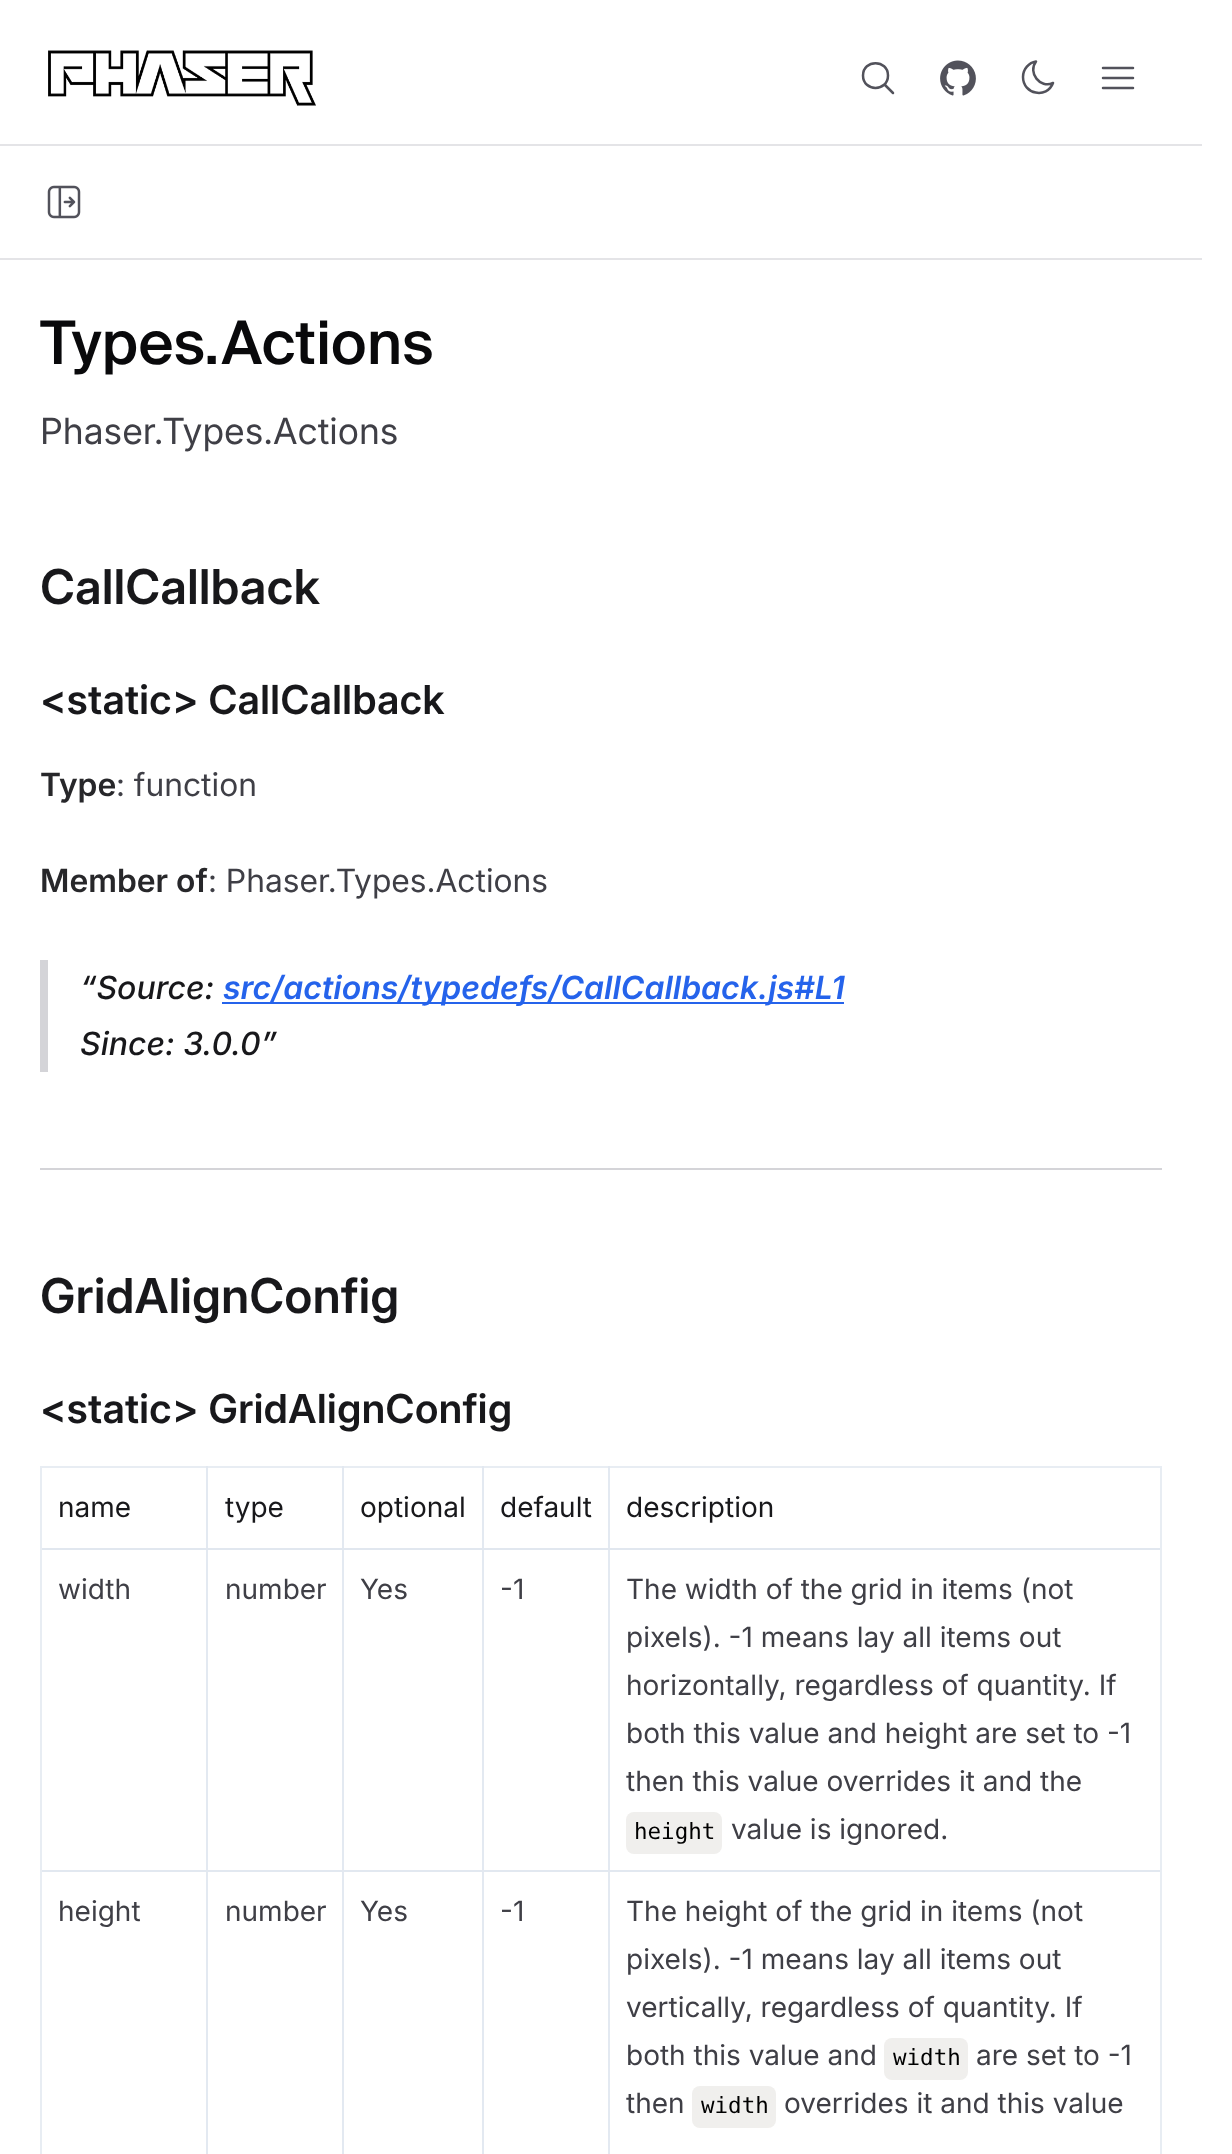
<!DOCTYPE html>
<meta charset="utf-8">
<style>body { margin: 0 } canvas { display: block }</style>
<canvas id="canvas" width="1232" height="2154"></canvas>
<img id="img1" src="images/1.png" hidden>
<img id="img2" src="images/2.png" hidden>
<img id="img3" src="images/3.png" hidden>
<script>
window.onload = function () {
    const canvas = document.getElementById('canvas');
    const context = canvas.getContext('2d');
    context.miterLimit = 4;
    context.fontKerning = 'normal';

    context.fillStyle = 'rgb(255, 255, 255)';
    context.fillRect(0, 0, 1232, 2154);
    context.fillStyle = 'rgb(232, 237, 243)';
    context.fillRect(42, 1466, 166, 2);
    context.fillStyle = 'rgb(227, 233, 241)';
    context.fillRect(206, 1466, 2, 688);
    context.fillStyle = 'rgb(232, 237, 243)';
    context.fillRect(206, 1466, 138, 2);
    context.fillStyle = 'rgb(226, 232, 240)';
    context.fillRect(206, 1466, 2, 2);
    context.fillStyle = 'rgb(227, 233, 241)';
    context.fillRect(342, 1466, 2, 688);
    context.fillStyle = 'rgb(232, 237, 243)';
    context.fillRect(342, 1466, 142, 2);
    context.fillStyle = 'rgb(226, 232, 240)';
    context.fillRect(342, 1466, 2, 2);
    context.fillStyle = 'rgb(227, 233, 241)';
    context.fillRect(482, 1466, 2, 688);
    context.fillStyle = 'rgb(232, 237, 243)';
    context.fillRect(482, 1466, 128, 2);
    context.fillStyle = 'rgb(226, 232, 240)';
    context.fillRect(482, 1466, 2, 2);
    context.fillStyle = 'rgb(227, 233, 241)';
    context.fillRect(608, 1466, 2, 688);
    context.fillStyle = 'rgb(228, 228, 231)';
    context.fillRect(0, 144, 1202, 2);
    context.drawImage(document.getElementById('img1'), 48, 50, 268, 56);
    context.beginPath();
    context.moveTo(893, 93);
    context.lineTo(884.5, 84.5);
    context.moveTo(888, 75.5);
    context.bezierCurveTo(888, 92, 863, 92, 863, 75.5);
    context.bezierCurveTo(863, 59, 888, 59, 888, 75.5);
    context.closePath();
    context.strokeStyle = 'rgb(82, 82, 91)';
    context.lineWidth = 2.5;
    context.lineCap = 'round';
    context.lineJoin = 'round';
    context.stroke();
    context.drawImage(document.getElementById('img2'), 940, 60, 36, 36);
    context.beginPath();
    context.moveTo(1023, 77);
    context.bezierCurveTo(1023, 94.5, 1047, 99, 1053, 83);
    context.bezierCurveTo(1040, 89, 1027.5, 72.5, 1036, 61.5);
    context.bezierCurveTo(1029, 62.5, 1023, 69, 1023, 77);
    context.closePath();
    context.stroke();
    context.beginPath();
    context.moveTo(1133, 78);
    context.lineTo(1103, 78);
    context.moveTo(1133, 88);
    context.lineTo(1103, 88);
    context.moveTo(1133, 68);
    context.lineTo(1103, 68);
    context.stroke();
    context.fillRect(0, 258, 1202, 2);
    context.drawImage(document.getElementById('img3'), 47, 185, 34, 34);
    context.fillStyle = 'rgb(212, 212, 216)';
    context.fillRect(40, 960, 8, 112);
    context.fillStyle = 'rgb(37, 99, 235)';
    context.fillRect(222, 1002, 622, 2);
    context.fillStyle = 'rgb(212, 212, 216)';
    context.fillRect(40, 1168, 1122, 2);
    context.fillStyle = 'rgb(232, 237, 243)';
    context.fillRect(1160, 1466, 2, 688);
    context.fillRect(40, 1466, 2, 688);
    context.fillStyle = 'rgb(225, 231, 239)';
    context.fillRect(42, 1548, 1118, 2);
    context.fillStyle = 'rgb(232, 237, 243)';
    context.fillRect(608, 1466, 552, 2);
    context.fillStyle = 'rgb(226, 232, 240)';
    context.fillRect(608, 1466, 2, 2);
    context.fillRect(42, 1870, 1118, 2);
    context.fillStyle = 'rgb(240, 239, 237)';
    context.beginPath();
    context.roundRect(626, 1812, 96, 42, 8);
    context.fill();
    context.beginPath();
    context.roundRect(884, 2038, 84, 42, 8);
    context.fill();
    context.beginPath();
    context.roundRect(692, 2086, 84, 42, 8);
    context.fill();
    context.font = '500 60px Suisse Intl';
    context.fillStyle = 'rgb(9, 9, 11)';
    context.fillText('Types.Actions', 40, 364);
    context.font = '36px Inter';
    context.fillStyle = 'rgb(63, 63, 70)';
    context.fillText('Phaser.Types.Actions', 40, 444);
    context.font = '600 48px Inter';
    context.fillStyle = 'rgb(24, 24, 27)';
    context.fillText('CallCallback', 40, 604);
    context.font = '600 40px "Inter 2"';
    context.fillText('<static> CallCallback', 40, 714);
    context.font = '600 32px "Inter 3"';
    context.fillStyle = 'rgb(39, 39, 42)';
    context.fillText('Type', 40, 796);
    context.font = '32px "Inter 2"';
    context.fillStyle = 'rgb(63, 63, 70)';
    context.fillText(': function', 116, 796);
    context.font = '600 32px "Inter 3"';
    context.fillStyle = 'rgb(39, 39, 42)';
    context.fillText('Member of', 40, 892);
    context.font = '32px "Inter 2"';
    context.fillStyle = 'rgb(63, 63, 70)';
    context.fillText(': Phaser.Types.Actions', 208, 892);
    context.font = 'italic 500 32px Inter';
    context.fillStyle = 'rgb(24, 24, 27)';
    context.fillText('“Source:', 80, 999);
    context.font = 'italic 600 32px Inter';
    context.fillStyle = 'rgb(37, 99, 235)';
    context.fillText('src/actions/typedefs/CallCallback.js#L1', 223, 999);
    context.font = 'italic 500 32px Inter';
    context.fillStyle = 'rgb(24, 24, 27)';
    context.fillText('Since: 3.0.0”', 80, 1055);
    context.font = '600 48px Inter';
    context.fillText('GridAlignConfig', 40, 1313);
    context.font = '600 40px "Inter 2"';
    context.fillText('<static> GridAlignConfig', 40, 1423);
    context.font = '28px "Inter 3"';
    context.fillText('name', 58, 1517);
    context.fillText('type', 225, 1517);
    context.fillText('optional', 360, 1517);
    context.fillText('default', 500, 1517);
    context.fillText('description', 626, 1517);
    context.fillStyle = 'rgb(63, 63, 70)';
    context.fillText('width', 58, 1599);
    context.fillText('number', 225, 1599);
    context.fillText('Yes', 360, 1599);
    context.fillText('-1', 500, 1599);
    context.fillText('The width of the grid in items (not', 626, 1599);
    context.fillText('pixels). -1 means lay all items out', 626, 1647);
    context.fillText('horizontally, regardless of quantity. If', 626, 1695);
    context.fillText('both this value and height are set to -1', 626, 1743);
    context.fillText('then this value overrides it and the', 626, 1791);
    context.font = '22.5px DejaVu Sans Mono';
    context.fillStyle = 'rgb(0, 0, 0)';
    context.fillText('height', 634, 1839);
    context.font = '28px "Inter 3"';
    context.fillStyle = 'rgb(63, 63, 70)';
    context.fillText('value is ignored.', 731, 1839);
    context.fillText('height', 58, 1921);
    context.fillText('number', 225, 1921);
    context.fillText('Yes', 360, 1921);
    context.fillText('-1', 500, 1921);
    context.fillText('The height of the grid in items (not', 626, 1921);
    context.fillText('pixels). -1 means lay all items out', 626, 1969);
    context.fillText('vertically, regardless of quantity. If', 626, 2017);
    context.fillText('both this value and', 626, 2065);
    context.font = '22.5px DejaVu Sans Mono';
    context.fillStyle = 'rgb(0, 0, 0)';
    context.fillText('width', 893, 2065);
    context.font = '28px "Inter 3"';
    context.fillStyle = 'rgb(63, 63, 70)';
    context.fillText('are set to -1', 976, 2065);
    context.fillText('then', 626, 2113);
    context.font = '22.5px DejaVu Sans Mono';
    context.fillStyle = 'rgb(0, 0, 0)';
    context.fillText('width', 701, 2113);
    context.font = '28px "Inter 3"';
    context.fillStyle = 'rgb(63, 63, 70)';
    context.fillText('overrides it and this value', 784, 2113);
};
</script>
